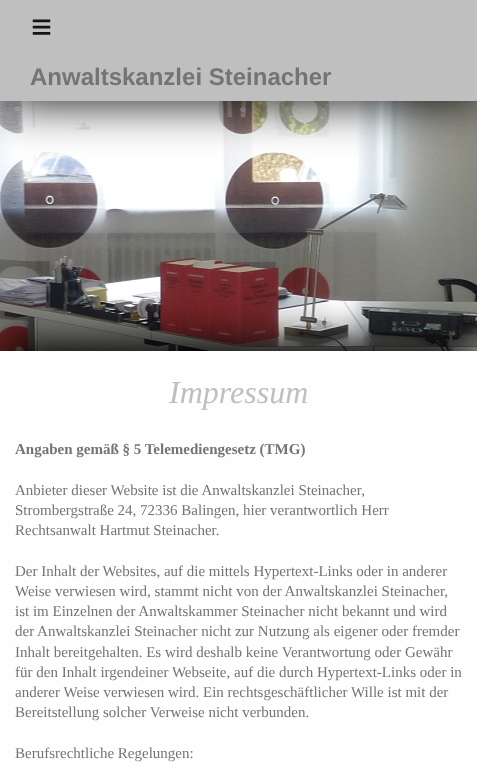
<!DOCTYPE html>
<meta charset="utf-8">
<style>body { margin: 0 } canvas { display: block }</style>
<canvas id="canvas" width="477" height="773"></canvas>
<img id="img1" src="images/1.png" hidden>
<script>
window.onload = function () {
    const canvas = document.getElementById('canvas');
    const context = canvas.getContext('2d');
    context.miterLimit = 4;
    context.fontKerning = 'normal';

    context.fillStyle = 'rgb(255, 255, 255)';
    context.fillRect(0, 0, 477, 773);
    context.drawImage(document.getElementById('img1'), 0, 101, 477, 250);
    context.fillStyle = 'rgb(0, 0, 0)';
    context.filter = 'blur(25px)';
    context.beginPath();
    context.rect(4, 0, 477, 101);
    context.fill();
    context.filter = 'none';
    context.fillStyle = 'rgb(191, 191, 191)';
    context.fillRect(0, 0, 477, 101);
    context.fillStyle = 'rgb(0, 0, 0)';
    context.filter = 'blur(20px)';
    context.beginPath();
    context.rect(10, 341, 457, 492);
    context.fill();
    context.filter = 'none';
    context.fillStyle = 'rgb(254, 254, 254)';
    context.fillRect(0, 351, 477, 422);
    context.letterSpacing = '10px';
    context.font = '36px Liberation Sans';
    context.fillStyle = 'rgb(19, 19, 19)';
    context.fillText('≡', 31, 39);
    context.letterSpacing = '0px';
    context.font = 'bold 24px Liberation Sans';
    context.fillStyle = 'rgb(116, 116, 116)';
    context.fillText('Anwaltskanzlei Steinacher', 30, 85);
    context.font = 'italic 32px Liberation Serif';
    context.fillStyle = 'rgb(191, 191, 191)';
    context.fillText('Impressum', 169, 403);
    context.font = 'bold 15px Liberation Serif';
    context.fillStyle = 'rgb(116, 116, 116)';
    context.fillText('Angaben gemäß § 5 Telemediengesetz (TMG)', 15, 454);
    context.font = '15px Liberation Serif';
    context.fillText('Anbieter dieser Website ist die Anwaltskanzlei Steinacher,', 15, 495);
    context.fillText('Strombergstraße 24, 72336 Balingen, hier verantwortlich Herr', 15, 515);
    context.fillText('Rechtsanwalt Hartmut Steinacher.', 15, 535);
    context.fillText('Der Inhalt der Websites, auf die mittels Hypertext-Links oder in anderer', 15, 576);
    context.fillText('Weise verwiesen wird, stammt nicht von der Anwaltskanzlei Steinacher,', 15, 596);
    context.fillText('ist im Einzelnen der Anwaltskammer Steinacher nicht bekannt und wird', 15, 616);
    context.fillText('der Anwaltskanzlei Steinacher nicht zur Nutzung als eigener oder fremder', 15, 636);
    context.fillText('Inhalt bereitgehalten. Es wird deshalb keine Verantwortung oder Gewähr', 15, 657);
    context.fillText('für den Inhalt irgendeiner Webseite, auf die durch Hypertext-Links oder in', 15, 677);
    context.fillText('anderer Weise verwiesen wird. Ein rechtsgeschäftlicher Wille ist mit der', 15, 697);
    context.fillText('Bereitstellung solcher Verweise nicht verbunden.', 15, 717);
    context.fillText('Berufsrechtliche Regelungen:', 15, 758);
};
</script>
